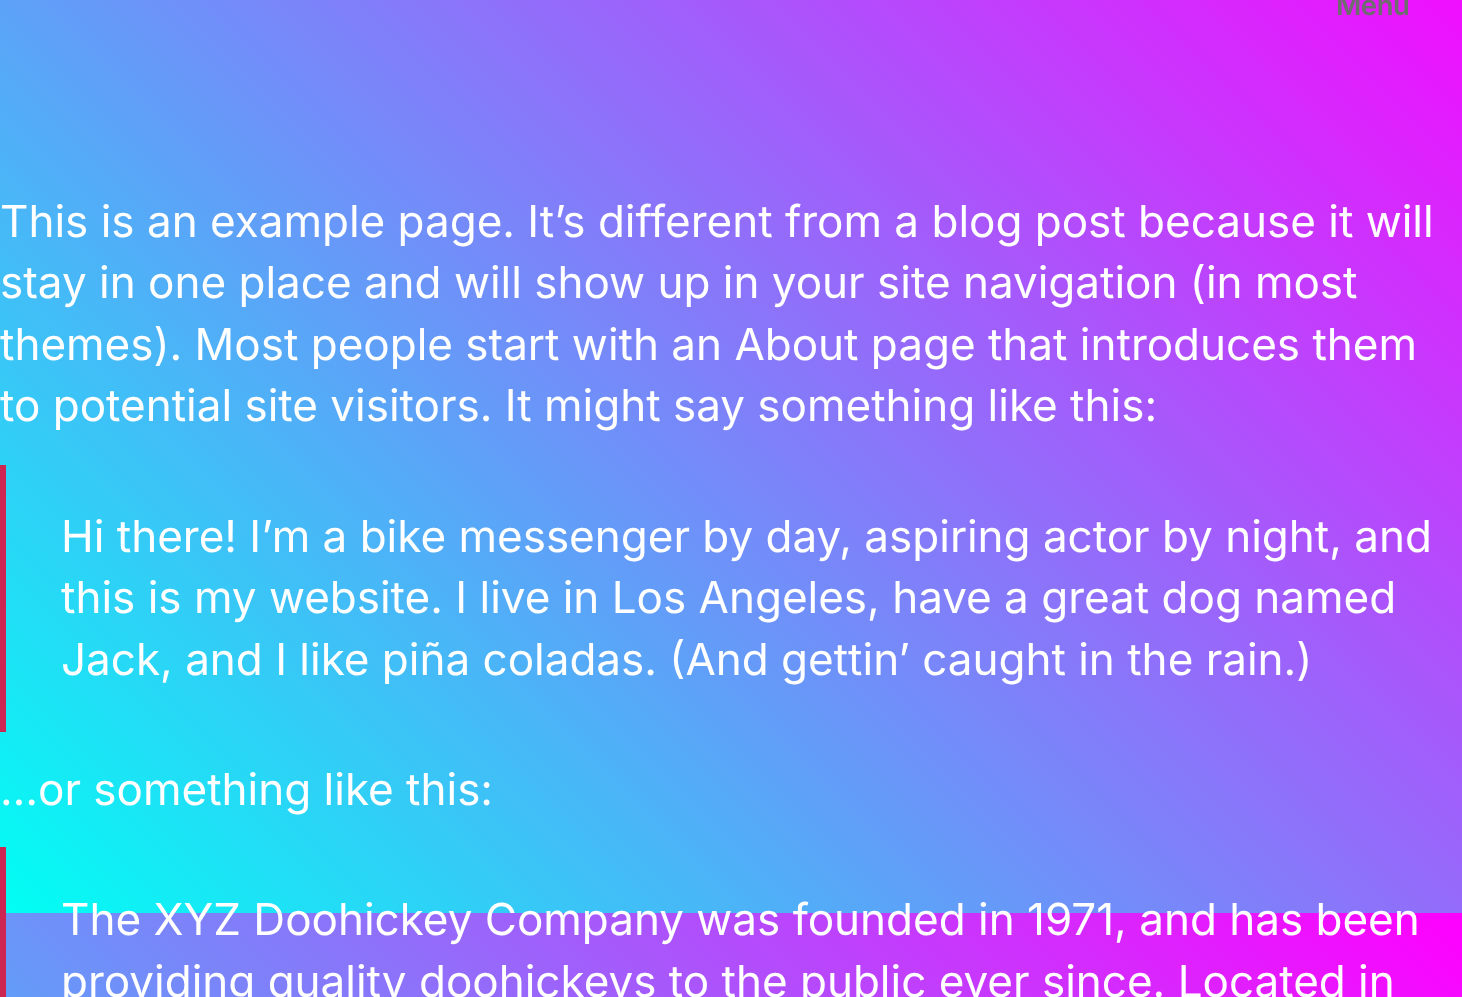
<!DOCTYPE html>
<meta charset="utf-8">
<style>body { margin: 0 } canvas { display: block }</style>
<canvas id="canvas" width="1462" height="997"></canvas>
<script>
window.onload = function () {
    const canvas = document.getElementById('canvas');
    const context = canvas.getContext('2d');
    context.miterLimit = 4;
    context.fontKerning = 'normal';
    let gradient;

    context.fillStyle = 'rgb(255, 255, 255)';
    context.fillRect(0, 0, 1462, 997);
    gradient = context.createLinearGradient(102, 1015, 1361, -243);
    gradient.addColorStop(0, 'rgb(0, 255, 244)');
    gradient.addColorStop(1, 'rgb(255, 0, 255)');
    context.fillStyle = gradient;
    context.fillRect(0, 0, 1462, 913);
    gradient = context.createLinearGradient(102, 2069, 1361, 811);
    gradient.addColorStop(0, 'rgb(0, 255, 244)');
    gradient.addColorStop(1, 'rgb(255, 0, 255)');
    context.fillStyle = gradient;
    context.fillRect(6, 913, 1456, 84);
    context.fillStyle = 'rgb(205, 38, 83)';
    context.fillRect(0, 465, 6, 267);
    context.fillRect(0, 847, 6, 150);
    context.letterSpacing = '-0.5px';
    context.font = '600 27.5px Inter';
    context.fillStyle = 'rgb(109, 109, 109)';
    context.fillText('Menu', 1336, 15);
    context.letterSpacing = '0px';
    context.font = '44px Inter';
    context.fillStyle = 'rgb(255, 255, 255)';
    context.fillText('This is an example page. It’s different from a blog post because it will', 0, 237);
    context.fillText('stay in one place and will show up in your site navigation (in most', 0, 298);
    context.fillText('themes). Most people start with an About page that introduces them', 0, 360);
    context.fillText('to potential site visitors. It might say something like this:', 0, 421);
    context.fillText('Hi there! I’m a bike messenger by day, aspiring actor by night, and', 61, 552);
    context.fillText('this is my website. I live in Los Angeles, have a great dog named', 61, 613);
    context.fillText('Jack, and I like piña coladas. (And gettin’ caught in the rain.)', 61, 675);
    context.fillText('…or something like this:', 0, 805);
    context.fillText('The XYZ Doohickey Company was founded in 1971, and has been', 61, 935);
    context.fillText('providing quality doohickeys to the public ever since. Located in', 61, 997);
};
</script>
